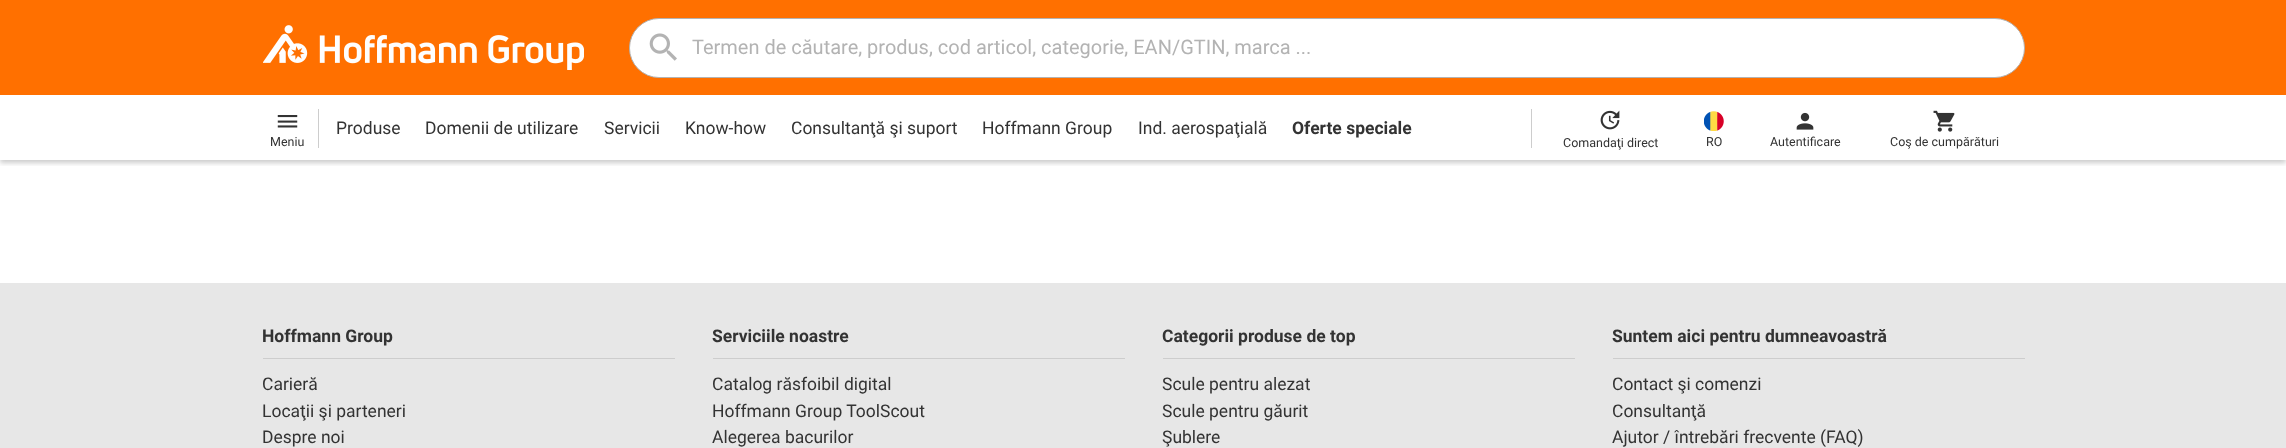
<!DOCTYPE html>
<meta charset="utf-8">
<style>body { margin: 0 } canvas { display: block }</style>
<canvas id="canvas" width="2286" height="448"></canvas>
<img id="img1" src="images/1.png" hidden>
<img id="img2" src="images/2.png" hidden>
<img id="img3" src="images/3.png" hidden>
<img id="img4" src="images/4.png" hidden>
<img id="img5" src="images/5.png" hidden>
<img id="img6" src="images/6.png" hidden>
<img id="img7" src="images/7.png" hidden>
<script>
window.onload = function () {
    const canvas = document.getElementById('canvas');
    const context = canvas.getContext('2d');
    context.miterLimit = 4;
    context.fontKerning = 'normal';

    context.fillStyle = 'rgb(255, 255, 255)';
    context.fillRect(0, 0, 2286, 448);
    context.fillStyle = 'rgb(255, 112, 0)';
    context.fillRect(0, 0, 2286, 95);
    context.drawImage(document.getElementById('img1'), 263, 25, 321, 45);
    context.fillStyle = 'rgb(255, 255, 255)';
    context.beginPath();
    context.roundRect(629.5, 18.5, 1395, 59, 29.5);
    context.fill();
    context.strokeStyle = 'rgb(179, 179, 179)';
    context.stroke();
    context.drawImage(document.getElementById('img2'), 649, 33, 28, 28);
    context.save();
    context.beginPath();
    context.rect(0, 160, 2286, 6);
    context.clip();
    context.fillStyle = 'rgba(0, 0, 0, 0.2)';
    context.filter = 'blur(2.5px)';
    context.beginPath();
    context.rect(0, 98, 2286, 65);
    context.fill();
    context.filter = 'none';
    context.restore();
    context.drawImage(document.getElementById('img3'), 277, 115, 21, 13);
    context.fillStyle = 'rgb(205, 205, 205)';
    context.fillRect(318, 109, 1, 39);
    context.fillRect(1531, 109, 1, 39);
    context.drawImage(document.getElementById('img4'), 1600, 110, 20, 20);
    context.drawImage(document.getElementById('img5'), 1704, 111, 20, 20);
    context.drawImage(document.getElementById('img6'), 1796, 112, 18, 18);
    context.drawImage(document.getElementById('img7'), 1933, 110, 22, 22);
    context.fillStyle = 'rgb(231, 231, 231)';
    context.fillRect(0, 283, 2286, 165);
    context.fillStyle = 'rgb(205, 205, 205)';
    context.fillRect(263, 358, 412, 1);
    context.fillRect(713, 358, 412, 1);
    context.fillRect(1163, 358, 412, 1);
    context.fillRect(1613, 358, 412, 1);
    context.font = '20px Roboto';
    context.fillStyle = 'rgb(179, 179, 179)';
    context.fillText('Termen de căutare, produs, cod articol, categorie, EAN/GTIN, marca ...', 692, 54);
    context.font = '17.5px Roboto';
    context.fillStyle = 'rgb(51, 51, 51)';
    context.fillText('Produse', 336, 134);
    context.fillText('Domenii de utilizare', 425, 134);
    context.fillText('Servicii', 604, 134);
    context.fillText('Know-how', 685, 134);
    context.fillText('Consultanţă şi suport', 791, 134);
    context.fillText('Hoffmann Group', 982, 134);
    context.fillText('Ind. aerospaţială', 1138, 134);
    context.font = 'bold 17.5px Roboto';
    context.fillText('Oferte speciale', 1292, 134);
    context.font = '12.5px Roboto';
    context.fillText('Meniu', 270, 146);
    context.fillText('Comandaţi direct', 1563, 147);
    context.fillText('RO', 1706, 146);
    context.fillText('Autentificare', 1770, 146);
    context.fillText('Coş de cumpărături', 1890, 146);
    context.font = 'bold 17.5px Roboto';
    context.fillText('Hoffmann Group', 262, 342);
    context.font = '17.5px Roboto';
    context.fillText('Carieră', 262, 390);
    context.fillText('Locaţii şi parteneri', 262, 417);
    context.fillText('Despre noi', 262, 443);
    context.font = 'bold 17.5px Roboto';
    context.fillText('Serviciile noastre', 712, 342);
    context.font = '17.5px Roboto';
    context.fillText('Catalog răsfoibil digital', 712, 390);
    context.fillText('Hoffmann Group ToolScout', 712, 417);
    context.fillText('Alegerea bacurilor', 712, 443);
    context.font = 'bold 17.5px Roboto';
    context.fillText('Categorii produse de top', 1162, 342);
    context.font = '17.5px Roboto';
    context.fillText('Scule pentru alezat', 1162, 390);
    context.fillText('Scule pentru găurit', 1162, 417);
    context.fillText('Şublere', 1162, 443);
    context.font = 'bold 17.5px Roboto';
    context.fillText('Suntem aici pentru dumneavoastră', 1612, 342);
    context.font = '17.5px Roboto';
    context.fillText('Contact şi comenzi', 1612, 390);
    context.fillText('Consultanţă', 1612, 417);
    context.fillText('Ajutor / întrebări frecvente (FAQ)', 1612, 443);
};
</script>
